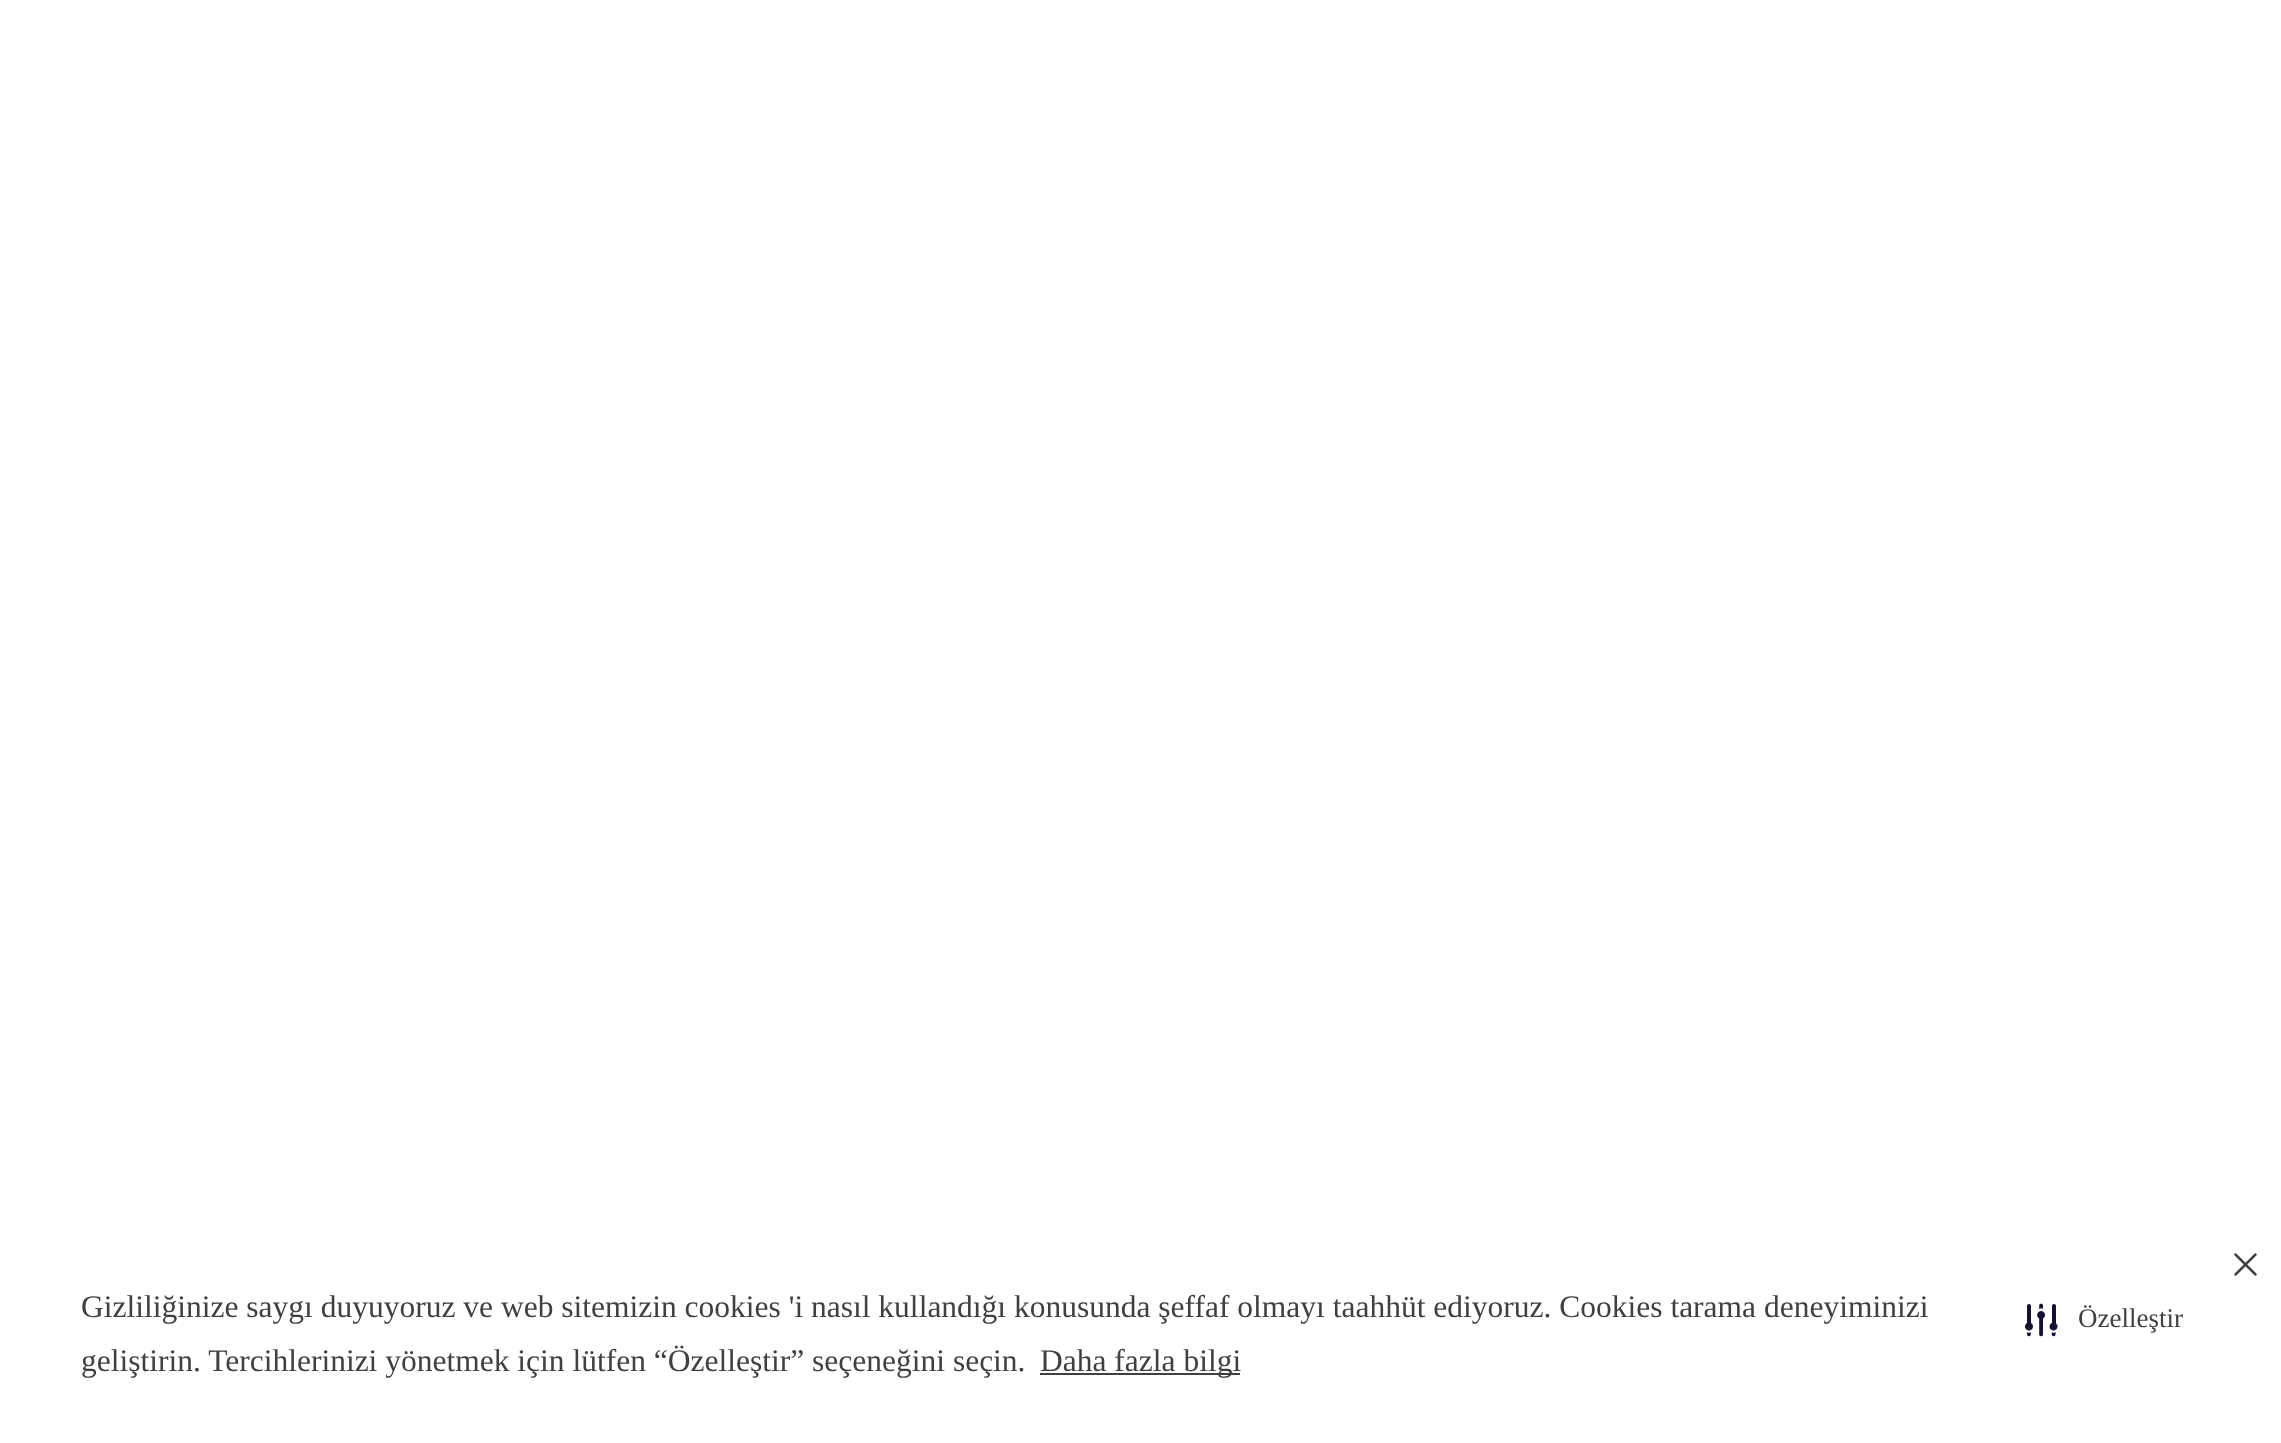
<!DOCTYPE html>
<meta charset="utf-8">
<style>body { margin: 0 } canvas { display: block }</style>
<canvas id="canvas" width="2281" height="1443"></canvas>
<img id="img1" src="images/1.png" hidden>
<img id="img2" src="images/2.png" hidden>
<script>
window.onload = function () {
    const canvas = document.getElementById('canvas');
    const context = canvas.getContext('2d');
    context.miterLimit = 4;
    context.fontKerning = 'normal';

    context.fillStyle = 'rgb(255, 255, 255)';
    context.fillRect(0, 0, 2281, 1443);
    context.fillStyle = 'rgb(64, 64, 64)';
    context.fillRect(1040, 1373, 200, 2);
    context.drawImage(document.getElementById('img1'), 2234, 1253, 23, 23);
    context.drawImage(document.getElementById('img2'), 2025, 1303, 33, 34);
    context.font = '31.5px Liberation Serif';
    context.fillText('Gizliliğinize saygı duyuyoruz ve web sitemizin cookies \'i nasıl kullandığı konusunda şeffaf olmayı taahhüt ediyoruz. Cookies tarama deneyiminizi', 81, 1317);
    context.fillText('geliştirin. Tercihlerinizi yönetmek için lütfen “Özelleştir” seçeneğini seçin.', 81, 1371);
    context.fillText('Daha fazla bilgi', 1040, 1371);
    context.font = '27px Liberation Serif';
    context.fillText('Özelleştir', 2078, 1327);
};
</script>
